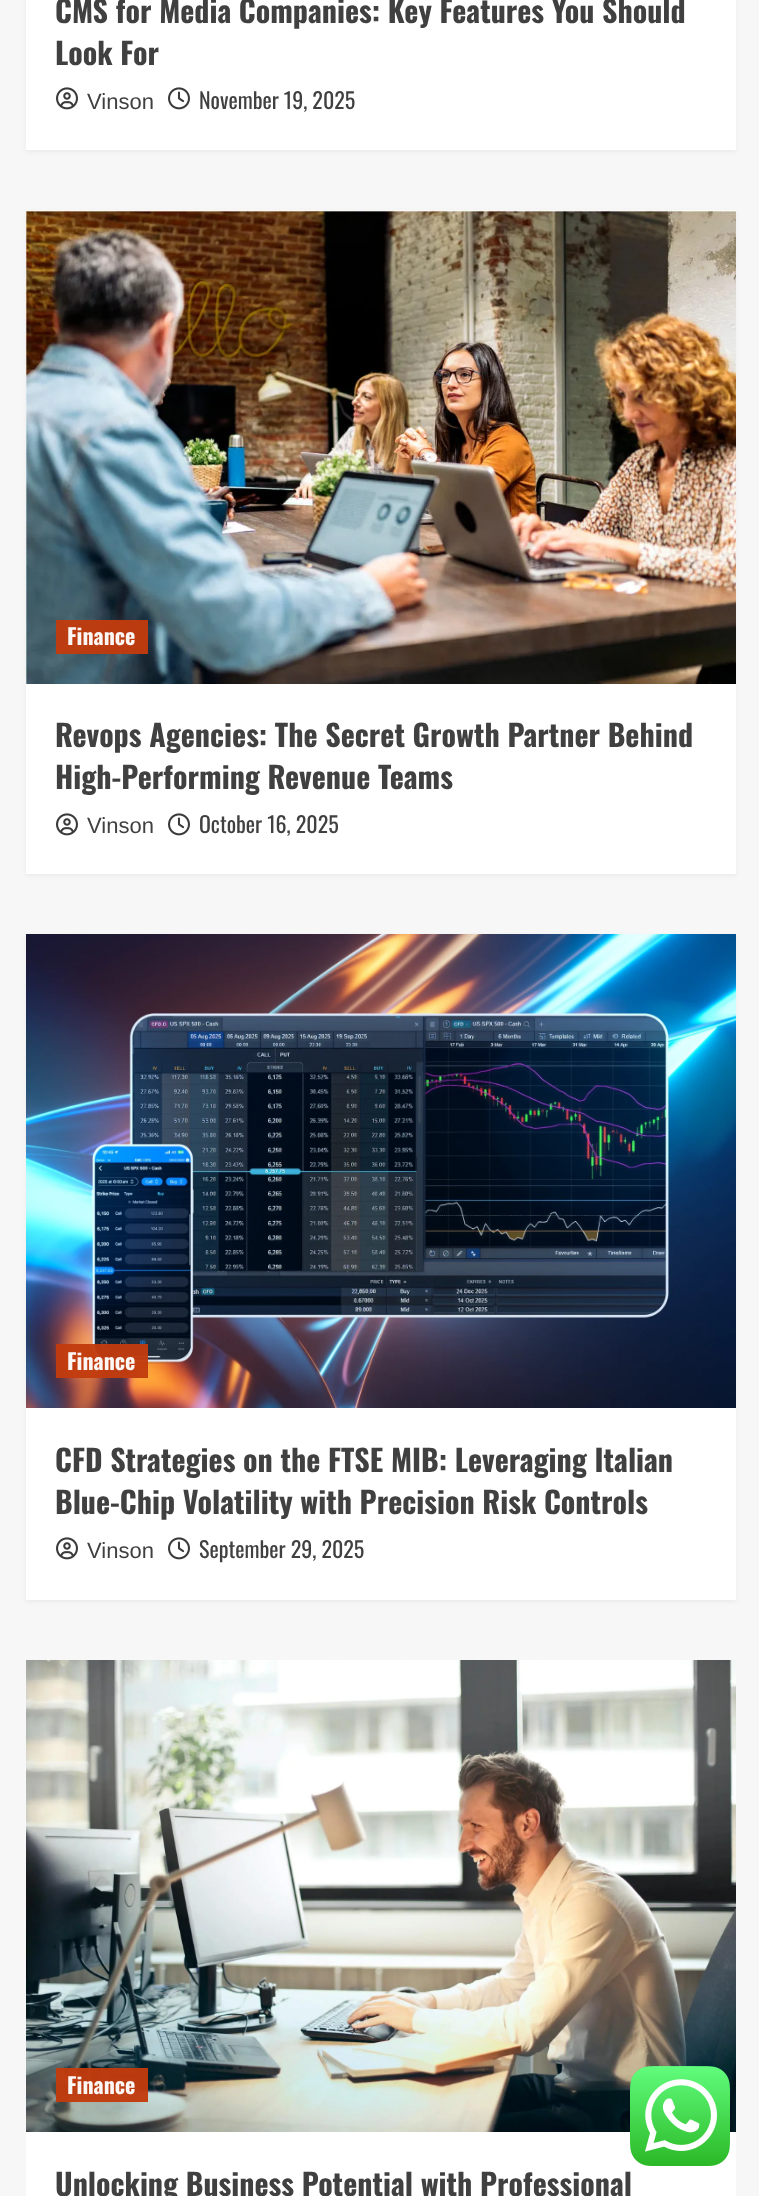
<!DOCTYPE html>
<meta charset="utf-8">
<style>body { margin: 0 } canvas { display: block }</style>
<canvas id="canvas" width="759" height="2196"></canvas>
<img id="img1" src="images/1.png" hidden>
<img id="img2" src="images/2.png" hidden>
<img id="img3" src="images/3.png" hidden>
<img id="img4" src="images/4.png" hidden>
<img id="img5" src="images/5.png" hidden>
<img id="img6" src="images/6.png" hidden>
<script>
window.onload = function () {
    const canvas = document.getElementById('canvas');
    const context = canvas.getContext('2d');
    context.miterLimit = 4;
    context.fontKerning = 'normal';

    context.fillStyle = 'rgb(247, 247, 247)';
    context.fillRect(0, 0, 759, 2196);
    context.fillStyle = 'rgba(0, 0, 0, 0.05)';
    context.filter = 'blur(2px)';
    context.beginPath();
    context.rect(26, -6, 710, 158);
    context.fill();
    context.filter = 'none';
    context.fillStyle = 'rgb(255, 255, 255)';
    context.fillRect(26, 0, 710, 150);
    context.drawImage(document.getElementById('img1'), 56, 87, 22, 23);
    context.drawImage(document.getElementById('img2'), 168, 87, 22, 23);
    context.fillStyle = 'rgba(0, 0, 0, 0.05)';
    context.filter = 'blur(2px)';
    context.beginPath();
    context.rect(26, 212, 710, 664);
    context.fill();
    context.filter = 'none';
    context.fillStyle = 'rgb(255, 255, 255)';
    context.fillRect(26, 684, 710, 190);
    context.drawImage(document.getElementById('img3'), 26, 210, 710, 474);
    context.fillStyle = 'rgba(194, 59, 14, 0.96)';
    context.fillRect(56, 620, 92, 34);
    context.drawImage(document.getElementById('img1'), 56, 813, 22, 23);
    context.drawImage(document.getElementById('img2'), 168, 813, 22, 23);
    context.fillStyle = 'rgba(0, 0, 0, 0.05)';
    context.filter = 'blur(2px)';
    context.beginPath();
    context.rect(26, 936, 710, 666);
    context.fill();
    context.filter = 'none';
    context.fillStyle = 'rgb(255, 255, 255)';
    context.fillRect(26, 1408, 710, 192);
    context.drawImage(document.getElementById('img4'), 26, 934, 710, 474);
    context.fillStyle = 'rgba(194, 59, 14, 0.96)';
    context.fillRect(56, 1344, 92, 34);
    context.drawImage(document.getElementById('img1'), 56, 1537, 22, 23);
    context.drawImage(document.getElementById('img2'), 168, 1537, 22, 23);
    context.fillStyle = 'rgb(255, 255, 255)';
    context.fillRect(26, 2132, 710, 64);
    context.drawImage(document.getElementById('img5'), 26, 1660, 710, 472);
    context.fillStyle = 'rgba(194, 59, 14, 0.96)';
    context.fillRect(56, 2068, 92, 34);
    context.drawImage(document.getElementById('img6'), 630, 2066, 100, 100);
    context.font = 'bold 30px Oswald';
    context.fillStyle = 'rgb(64, 64, 64)';
    context.fillText('CMS for Media Companies: Key Features You Should', 55, 23);
    context.fillText('Look For', 55, 65);
    context.font = '22px Liberation Sans';
    context.fillText('Vinson', 87, 109);
    context.font = '22px Oswald';
    context.fillText('November 19, 2025', 199, 109);
    context.font = 'bold 22px Oswald';
    context.fillStyle = 'rgb(252, 247, 245)';
    context.fillText('Finance', 67, 645);
    context.font = 'bold 30px Oswald';
    context.fillStyle = 'rgb(64, 64, 64)';
    context.fillText('Revops Agencies: The Secret Growth Partner Behind', 55, 747);
    context.fillText('High-Performing Revenue Teams', 55, 789);
    context.font = '22px Liberation Sans';
    context.fillText('Vinson', 87, 833);
    context.font = '22px Oswald';
    context.fillText('October 16, 2025', 199, 833);
    context.font = 'bold 22px Oswald';
    context.fillStyle = 'rgb(252, 247, 245)';
    context.fillText('Finance', 67, 1370);
    context.font = 'bold 30px Oswald';
    context.fillStyle = 'rgb(64, 64, 64)';
    context.fillText('CFD Strategies on the FTSE MIB: Leveraging Italian', 55, 1472);
    context.fillText('Blue-Chip Volatility with Precision Risk Controls', 55, 1514);
    context.font = '22px Liberation Sans';
    context.fillText('Vinson', 87, 1558);
    context.font = '22px Oswald';
    context.fillText('September 29, 2025', 199, 1558);
    context.font = 'bold 22px Oswald';
    context.fillStyle = 'rgb(252, 247, 245)';
    context.fillText('Finance', 67, 2094);
    context.font = 'bold 30px Oswald';
    context.fillStyle = 'rgb(64, 64, 64)';
    context.fillText('Unlocking Business Potential with Professional', 55, 2196);
};
</script>
